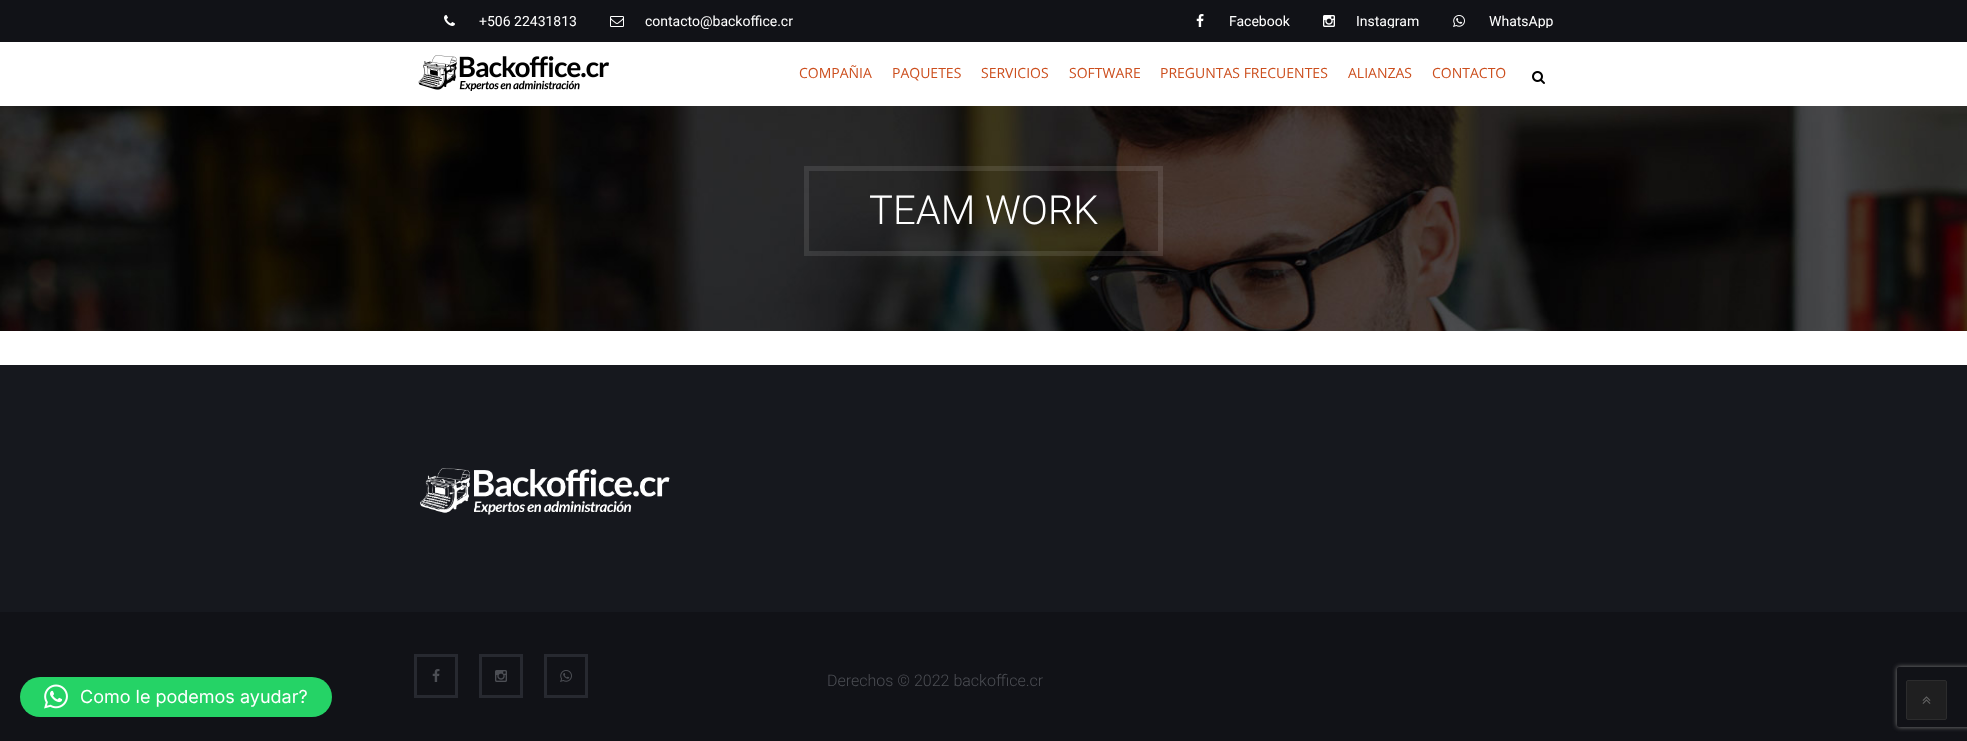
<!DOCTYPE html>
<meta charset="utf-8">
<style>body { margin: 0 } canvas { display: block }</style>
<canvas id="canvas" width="1967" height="741"></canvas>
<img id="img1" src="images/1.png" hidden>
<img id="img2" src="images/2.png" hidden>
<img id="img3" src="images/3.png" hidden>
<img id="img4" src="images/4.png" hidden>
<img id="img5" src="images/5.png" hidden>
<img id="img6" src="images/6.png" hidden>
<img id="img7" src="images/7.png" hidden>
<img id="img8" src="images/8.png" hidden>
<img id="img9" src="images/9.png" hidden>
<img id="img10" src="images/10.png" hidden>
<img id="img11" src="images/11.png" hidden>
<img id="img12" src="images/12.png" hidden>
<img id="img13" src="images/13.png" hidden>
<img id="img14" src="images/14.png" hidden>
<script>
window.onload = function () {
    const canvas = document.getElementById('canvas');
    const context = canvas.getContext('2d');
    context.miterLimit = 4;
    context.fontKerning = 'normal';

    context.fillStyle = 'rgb(255, 255, 255)';
    context.fillRect(0, 0, 1967, 741);
    context.fillStyle = 'rgb(17, 18, 23)';
    context.fillRect(0, 0, 1967, 42);
    context.drawImage(document.getElementById('img1'), 444, 15, 11, 11);
    context.drawImage(document.getElementById('img2'), 610, 16, 14, 11);
    context.drawImage(document.getElementById('img3'), 1196, 14, 8, 13);
    context.drawImage(document.getElementById('img4'), 1323, 15, 12, 12);
    context.drawImage(document.getElementById('img5'), 1453, 15, 12, 12);
    context.drawImage(document.getElementById('img6'), 418, 55, 191, 36);
    context.drawImage(document.getElementById('img7'), 1532, 71, 13, 13);
    context.drawImage(document.getElementById('img8'), 0, 106, 1967, 225);
    context.strokeStyle = 'rgba(255, 255, 255, 0.1)';
    context.lineWidth = 5;
    context.strokeRect(806.5, 168.5, 354, 85);
    context.fillStyle = 'rgb(22, 24, 30)';
    context.fillRect(0, 365, 1967, 247);
    context.drawImage(document.getElementById('img9'), 420, 468, 250, 47);
    context.fillStyle = 'rgb(17, 18, 23)';
    context.fillRect(0, 612, 1967, 129);
    context.strokeStyle = 'rgb(39, 41, 48)';
    context.lineWidth = 3;
    context.strokeRect(415.5, 655.5, 41, 41);
    context.drawImage(document.getElementById('img10'), 432, 669, 8, 13);
    context.strokeRect(480.5, 655.5, 41, 41);
    context.drawImage(document.getElementById('img11'), 495, 670, 12, 12);
    context.strokeRect(545.5, 655.5, 41, 41);
    context.drawImage(document.getElementById('img12'), 560, 670, 12, 12);
    context.save();
    context.beginPath();
    context.moveTo(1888, 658);
    context.lineTo(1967, 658);
    context.lineTo(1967, 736);
    context.lineTo(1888, 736);
    context.closePath();
    context.moveTo(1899, 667);
    context.lineTo(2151, 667);
    context.bezierCurveTo(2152, 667, 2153, 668, 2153, 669);
    context.lineTo(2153, 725);
    context.bezierCurveTo(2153, 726, 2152, 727, 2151, 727);
    context.lineTo(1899, 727);
    context.bezierCurveTo(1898, 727, 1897, 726, 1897, 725);
    context.lineTo(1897, 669);
    context.bezierCurveTo(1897, 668, 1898, 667, 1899, 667);
    context.closePath();
    context.clip('evenodd');
    context.fillStyle = 'rgb(128, 128, 128)';
    context.filter = 'blur(2.5px)';
    context.beginPath();
    context.roundRect(1897, 667, 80, 60, 2);
    context.fill();
    context.filter = 'none';
    context.restore();
    context.fillStyle = 'rgb(31, 31, 32)';
    context.beginPath();
    context.roundRect(1906.5, 680.5, 40, 39, 1.5);
    context.fill();
    context.strokeStyle = 'rgb(44, 44, 45)';
    context.lineWidth = 1;
    context.stroke();
    context.drawImage(document.getElementById('img13'), 1922, 696, 9, 8);
    context.fillStyle = 'rgb(37, 211, 102)';
    context.beginPath();
    context.roundRect(20, 677, 312, 40, 20);
    context.fill();
    context.drawImage(document.getElementById('img14'), 44, 684, 24, 25);
    context.font = '14px Roboto';
    context.fillStyle = 'rgb(255, 255, 255)';
    context.fillText('+506 22431813', 479, 26);
    context.fillText('contacto@backoffice.cr', 645, 26);
    context.fillText('Facebook', 1229, 26);
    context.save();
    context.beginPath();
    context.rect(1166, 10, 388, 18);
    context.clip();
    context.fillText('Instagram', 1356, 26);
    context.fillText('WhatsApp', 1489, 26);
    context.restore();
    context.font = '14px Open Sans';
    context.fillStyle = 'rgb(204, 78, 29)';
    context.fillText('COMPAÑIA', 799, 78);
    context.fillText('PAQUETES', 892, 78);
    context.fillText('SERVICIOS', 981, 78);
    context.fillText('SOFTWARE', 1069, 78);
    context.fillText('PREGUNTAS FRECUENTES', 1160, 78);
    context.fillText('ALIANZAS', 1348, 78);
    context.fillText('CONTACTO', 1432, 78);
    context.font = '300 40px Roboto';
    context.fillStyle = 'rgb(255, 255, 255)';
    context.fillText('TEAM WORK', 869, 224);
    context.font = '300 16px Roboto';
    context.fillStyle = 'rgb(76, 78, 84)';
    context.fillText('Derechos © 2022 backoffice.cr', 827, 686);
    context.font = '18px Inter';
    context.fillStyle = 'rgb(255, 255, 255)';
    context.fillText('Como le podemos ayudar?', 80, 703);
};
</script>
